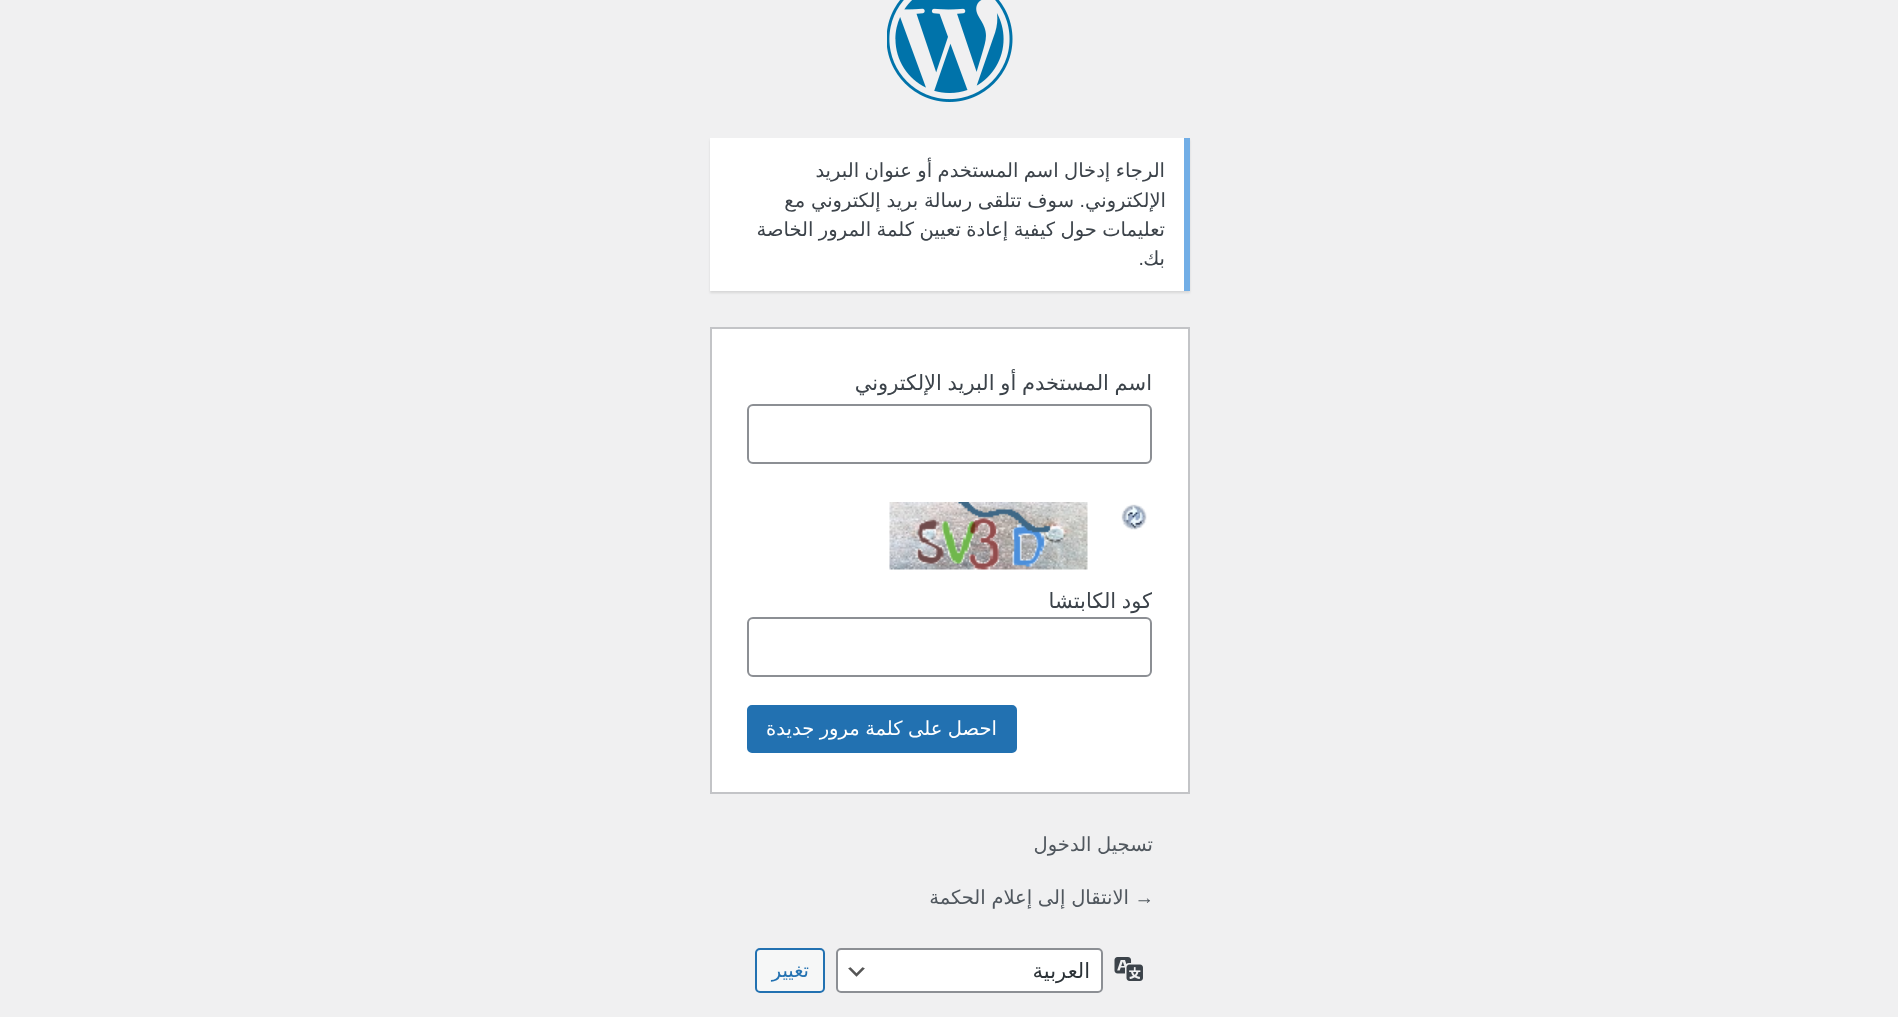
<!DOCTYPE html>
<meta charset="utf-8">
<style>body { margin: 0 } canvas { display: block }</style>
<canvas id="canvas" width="1898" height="1017"></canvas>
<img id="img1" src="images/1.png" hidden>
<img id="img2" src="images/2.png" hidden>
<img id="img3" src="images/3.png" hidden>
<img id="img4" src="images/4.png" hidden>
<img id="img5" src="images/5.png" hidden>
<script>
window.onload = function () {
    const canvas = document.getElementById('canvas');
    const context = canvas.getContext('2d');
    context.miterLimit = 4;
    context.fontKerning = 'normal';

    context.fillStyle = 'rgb(240, 240, 241)';
    context.fillRect(0, 0, 1898, 1017);
    context.drawImage(document.getElementById('img1'), 887, 0, 126, 102);
    context.fillStyle = 'rgba(0, 0, 0, 0.1)';
    context.filter = 'blur(1px)';
    context.beginPath();
    context.rect(710, 140, 480, 153);
    context.fill();
    context.filter = 'none';
    context.fillStyle = 'rgb(255, 255, 255)';
    context.fillRect(710, 138, 474, 153);
    context.fillStyle = 'rgb(114, 174, 230)';
    context.fillRect(1184, 138, 6, 153);
    context.fillStyle = 'rgb(255, 255, 255)';
    context.beginPath();
    context.rect(711, 328, 478, 465);
    context.fill();
    context.strokeStyle = 'rgb(195, 196, 199)';
    context.lineWidth = 2;
    context.stroke();
    context.beginPath();
    context.roundRect(748, 405, 403, 58, 5);
    context.strokeStyle = 'rgb(140, 143, 148)';
    context.stroke();
    context.drawImage(document.getElementById('img2'), 1121, 504, 26, 26);
    context.drawImage(document.getElementById('img3'), 889, 502, 199, 68);
    context.beginPath();
    context.roundRect(748, 618, 403, 58, 5);
    context.stroke();
    context.fillStyle = 'rgb(34, 113, 177)';
    context.beginPath();
    context.roundRect(748, 706, 268, 46, 4);
    context.fill();
    context.strokeStyle = 'rgb(34, 113, 177)';
    context.stroke();
    context.drawImage(document.getElementById('img4'), 1114, 957, 29, 24);
    context.fillStyle = 'rgb(255, 255, 255)';
    context.beginPath();
    context.roundRect(836, 948, 267, 45, 5);
    context.fill();
    context.drawImage(document.getElementById('img5'), 848, 967, 17, 10);
    context.beginPath();
    context.roundRect(837, 949, 265, 43, 4);
    context.strokeStyle = 'rgb(140, 143, 148)';
    context.stroke();
    context.fillStyle = 'rgb(246, 247, 247)';
    context.beginPath();
    context.roundRect(756, 949, 68, 43, 4);
    context.fill();
    context.strokeStyle = 'rgb(34, 113, 177)';
    context.stroke();
    context.wordSpacing = '-0.75px';
    context.direction = 'rtl';
    context.font = '19.5px DejaVu Sans';
    context.fillStyle = 'rgb(60, 67, 74)';
    context.fillText('الرجاء إدخال اسم المستخدم أو عنوان البريد', 1165, 177);
    context.wordSpacing = '0px';
    context.fillText('الإلكتروني', 1166, 207);
    context.font = '19.5px Liberation Sans';
    context.fillText('.', 1085, 207);
    context.wordSpacing = '-0.5px';
    context.font = '19.5px DejaVu Sans';
    context.fillText('سوف تتلقى رسالة بريد إلكتروني مع', 1074, 207);
    context.wordSpacing = '-0.75px';
    context.fillText('تعليمات حول كيفية إعادة تعيين كلمة المرور الخاصة', 1165, 236);
    context.wordSpacing = '0px';
    context.fillText('بك', 1165, 265);
    context.font = '19.5px Liberation Sans';
    context.fillText('.', 1144, 265);
    context.wordSpacing = '-1px';
    context.font = '21px DejaVu Sans';
    context.fillText('اسم المستخدم أو البريد الإلكتروني', 1152, 390);
    context.fillText('كود الكابتشا', 1152, 608);
    context.wordSpacing = '-0.75px';
    context.font = '19.5px DejaVu Sans';
    context.fillStyle = 'rgb(255, 255, 255)';
    context.fillText('احصل على كلمة مرور جديدة', 997, 735);
    context.fillStyle = 'rgb(80, 87, 94)';
    context.fillText('تسجيل الدخول', 1153, 851);
    context.wordSpacing = '0px';
    context.font = '19.5px Liberation Sans';
    context.fillText('→', 1154, 904);
    context.wordSpacing = '-0.5px';
    context.font = '19.5px DejaVu Sans';
    context.fillText('الانتقال إلى إعلام الحكمة', 1129, 904);
    context.wordSpacing = '0px';
    context.font = '21px DejaVu Sans';
    context.fillStyle = 'rgb(44, 51, 56)';
    context.fillText('العربية', 1090, 978);
    context.font = '19.5px DejaVu Sans';
    context.fillStyle = 'rgb(34, 113, 177)';
    context.fillText('تغيير', 809, 977);
};
</script>
